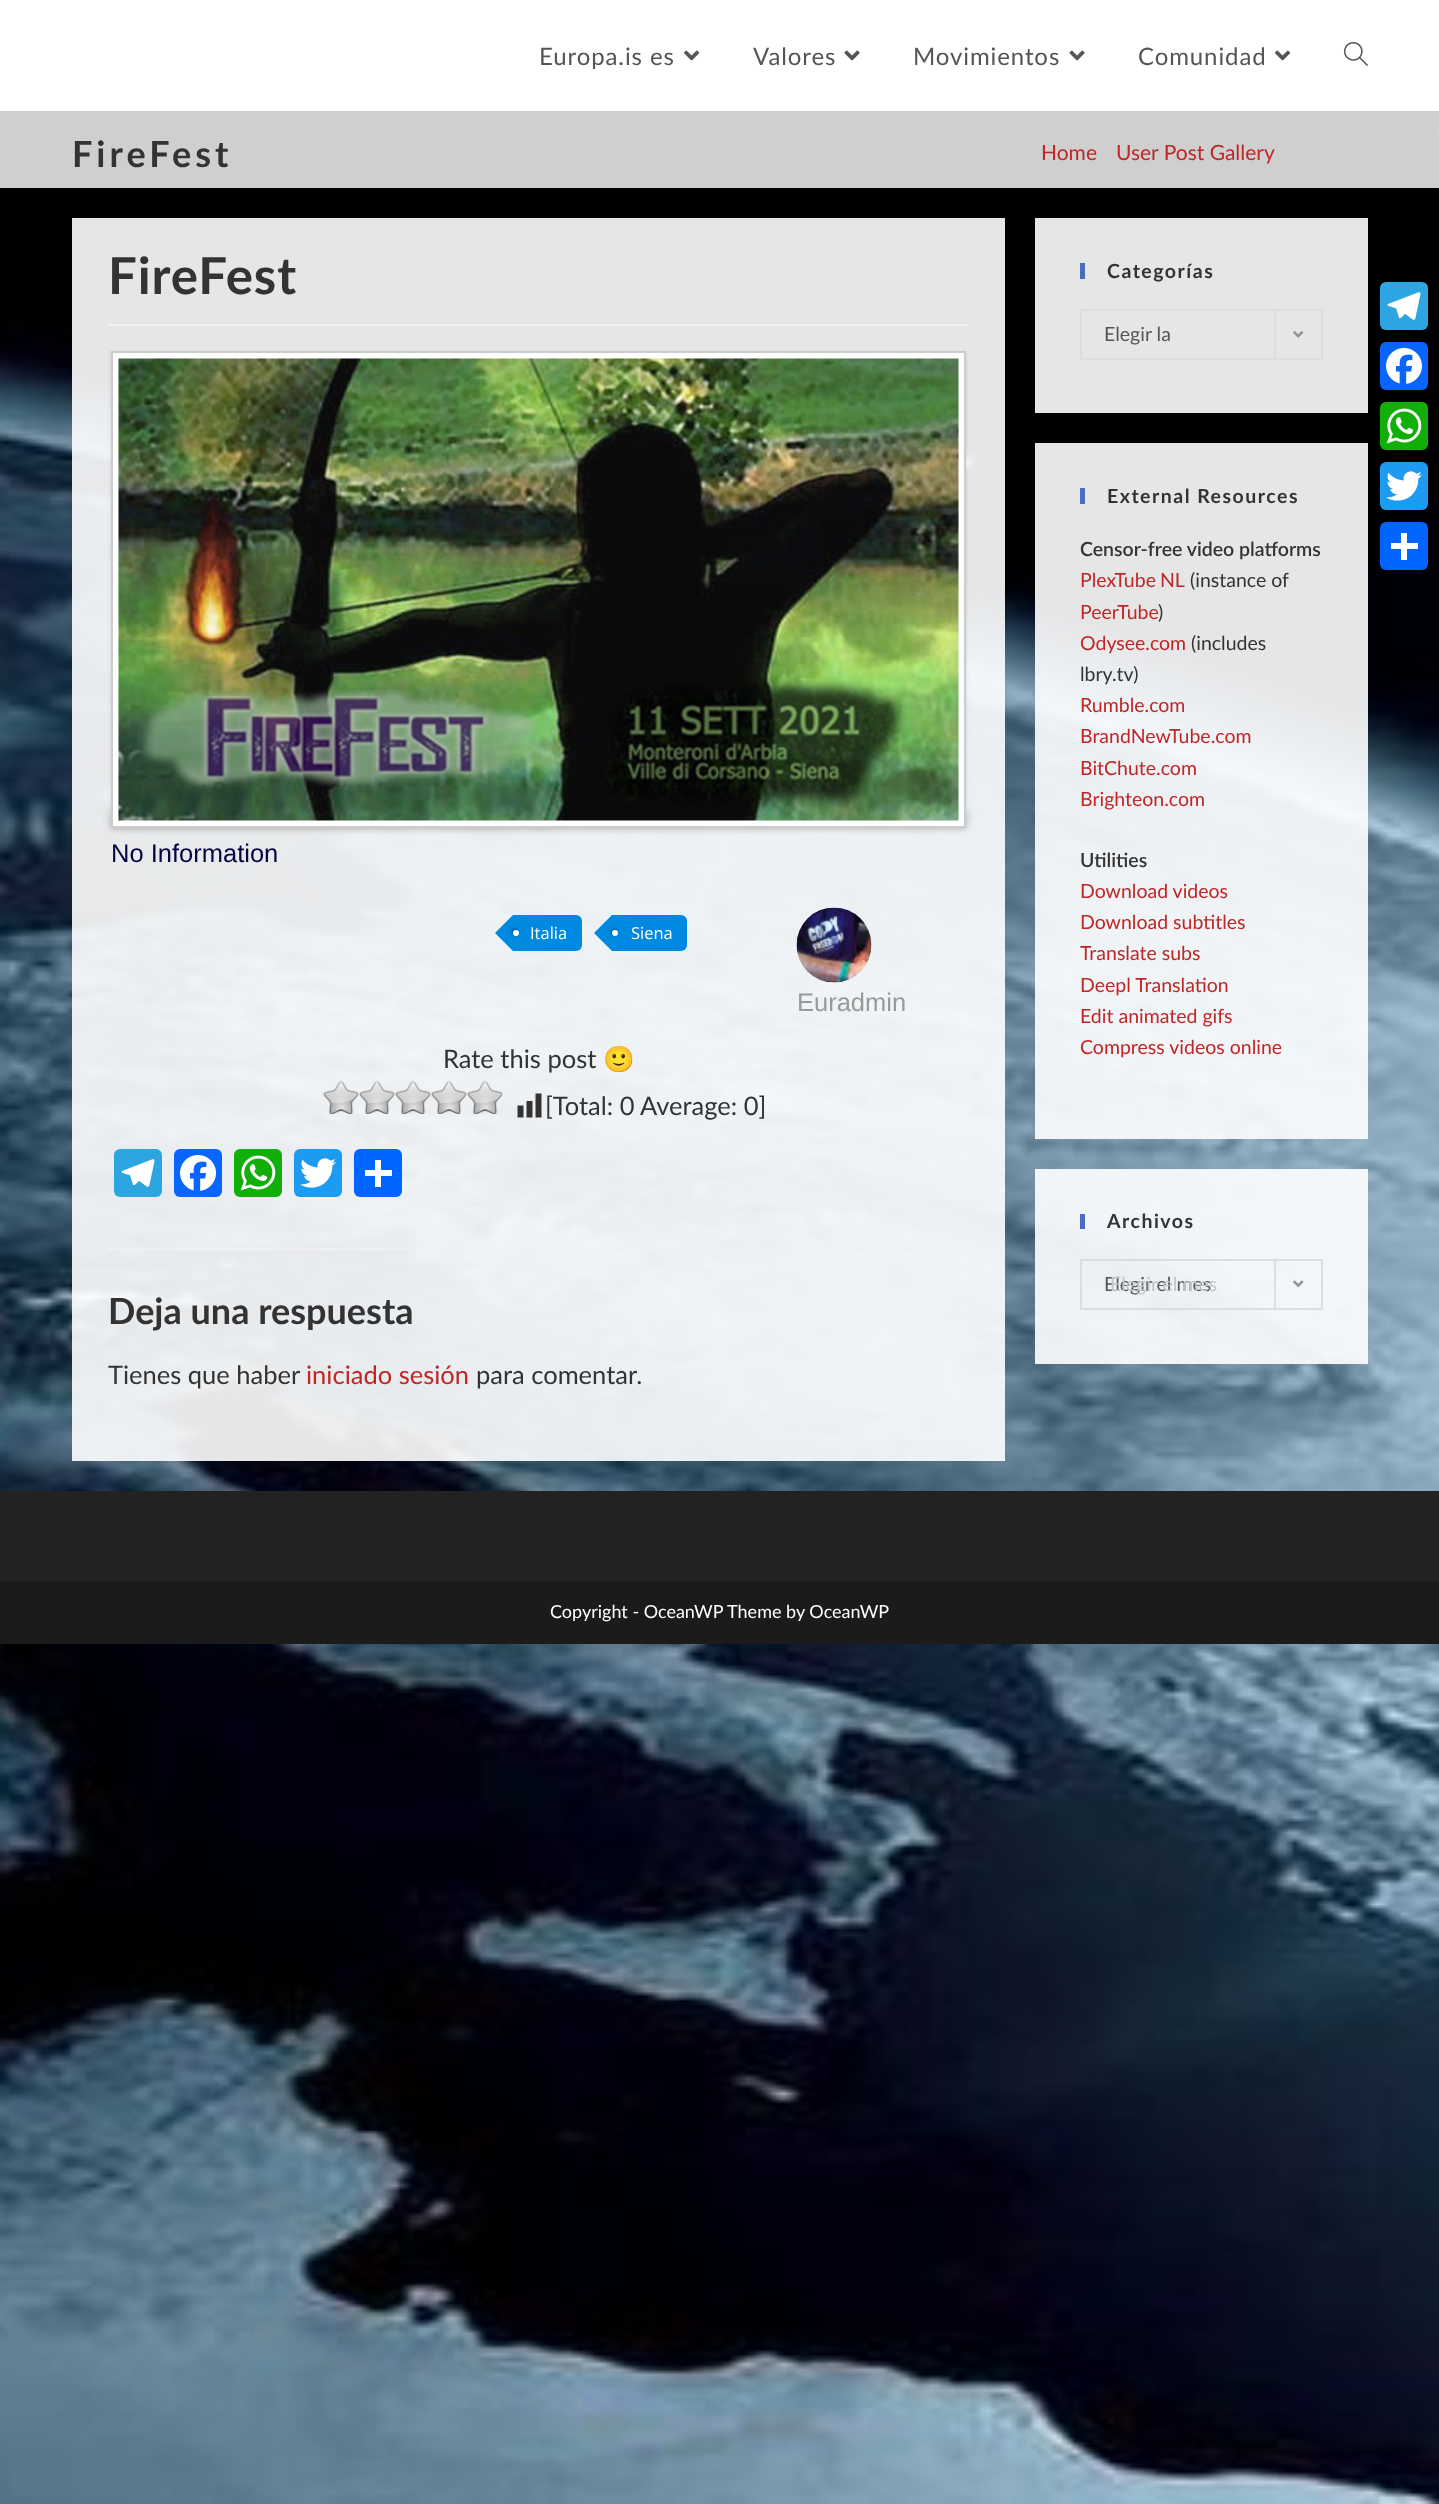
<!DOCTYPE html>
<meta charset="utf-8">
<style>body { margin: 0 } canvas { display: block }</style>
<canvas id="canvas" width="1439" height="2504"></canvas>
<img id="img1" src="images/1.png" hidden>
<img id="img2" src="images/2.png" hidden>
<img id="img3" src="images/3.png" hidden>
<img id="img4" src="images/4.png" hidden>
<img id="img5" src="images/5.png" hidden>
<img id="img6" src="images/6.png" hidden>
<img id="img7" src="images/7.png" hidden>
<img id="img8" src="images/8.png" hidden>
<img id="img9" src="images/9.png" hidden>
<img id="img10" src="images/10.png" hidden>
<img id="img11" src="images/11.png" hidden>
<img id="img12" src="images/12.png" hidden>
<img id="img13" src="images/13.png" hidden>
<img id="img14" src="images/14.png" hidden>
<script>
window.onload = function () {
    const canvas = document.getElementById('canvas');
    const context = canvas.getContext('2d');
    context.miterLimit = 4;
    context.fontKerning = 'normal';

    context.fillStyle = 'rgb(255, 255, 255)';
    context.fillRect(0, 0, 1439, 2504);
    context.drawImage(document.getElementById('img1'), 0, 111, 1439, 2393);
    context.drawImage(document.getElementById('img2'), 684, 50, 15, 11);
    context.drawImage(document.getElementById('img3'), 844, 50, 16, 11);
    context.drawImage(document.getElementById('img3'), 1069, 50, 16, 11);
    context.drawImage(document.getElementById('img2'), 1275, 50, 15, 11);
    context.drawImage(document.getElementById('img4'), 1343, 42, 25, 24);
    context.fillStyle = 'rgba(255, 255, 255, 0.81)';
    context.fillRect(0, 111, 1439, 77);
    context.fillStyle = 'rgba(255, 255, 255, 0.9)';
    context.fillRect(72, 218, 933, 1243);
    context.fillStyle = 'rgb(241, 241, 241)';
    context.fillRect(108, 324, 861, 2);
    context.fillStyle = 'rgba(0, 0, 0, 0.1)';
    context.filter = 'blur(2px)';
    context.beginPath();
    context.rect(111, 353, 855, 477);
    context.fill();
    context.filter = 'none';
    context.fillStyle = 'rgba(104, 104, 104, 0.5)';
    context.filter = 'blur(5.5px)';
    context.beginPath();
    context.rect(111, 813, 431, 12);
    context.fill();
    context.filter = 'none';
    context.filter = 'blur(5.5px)';
    context.beginPath();
    context.rect(536, 813, 430, 12);
    context.fill();
    context.filter = 'none';
    context.fillStyle = 'rgb(255, 255, 255)';
    context.beginPath();
    context.rect(112, 352, 853, 475);
    context.fill();
    context.strokeStyle = 'rgb(204, 204, 204)';
    context.lineWidth = 2;
    context.stroke();
    context.drawImage(document.getElementById('img5'), 118, 358, 841, 463);
    context.fillStyle = 'rgb(0, 137, 224)';
    context.beginPath();
    context.roundRect(513, 915, 69, 36, [0, 6, 6, 0]);
    context.fill();
    context.beginPath();
    context.moveTo(513, 915);
    context.lineTo(513, 951);
    context.lineTo(495, 933);
    context.closePath();
    context.fill();
    context.fillStyle = 'rgb(0, 73, 119)';
    context.filter = 'blur(1.5px)';
    context.beginPath();
    context.roundRect(512, 929, 6, 6, 3);
    context.fill();
    context.filter = 'none';
    context.fillStyle = 'rgb(255, 255, 255)';
    context.beginPath();
    context.arc(516, 933, 3, 0, 2 * Math.PI);
    context.fill();
    context.fillStyle = 'rgb(0, 137, 224)';
    context.beginPath();
    context.roundRect(612, 915, 75, 36, [0, 6, 6, 0]);
    context.fill();
    context.beginPath();
    context.moveTo(612, 915);
    context.lineTo(612, 951);
    context.lineTo(594, 933);
    context.closePath();
    context.fill();
    context.fillStyle = 'rgb(0, 73, 119)';
    context.filter = 'blur(1.5px)';
    context.beginPath();
    context.roundRect(611, 929, 6, 6, 3);
    context.fill();
    context.filter = 'none';
    context.fillStyle = 'rgb(255, 255, 255)';
    context.beginPath();
    context.arc(615, 933, 3, 0, 2 * Math.PI);
    context.fill();
    context.drawImage(document.getElementById('img6'), 796, 907, 76, 76);
    context.drawImage(document.getElementById('img7'), 322, 1080, 181, 34);
    context.drawImage(document.getElementById('img8'), 517, 1093, 25, 25);
    context.fillStyle = 'rgb(44, 165, 224)';
    context.beginPath();
    context.roundRect(114, 1149, 48, 48, 6);
    context.fill();
    context.drawImage(document.getElementById('img9'), 121, 1159, 34, 28);
    context.fillStyle = 'rgb(8, 102, 255)';
    context.beginPath();
    context.roundRect(174, 1149, 48, 48, 6);
    context.fill();
    context.drawImage(document.getElementById('img10'), 180, 1155, 36, 36);
    context.fillStyle = 'rgb(18, 175, 10)';
    context.beginPath();
    context.roundRect(234, 1149, 48, 48, 6);
    context.fill();
    context.drawImage(document.getElementById('img11'), 240, 1155, 36, 36);
    context.fillStyle = 'rgb(29, 155, 240)';
    context.beginPath();
    context.roundRect(294, 1149, 48, 48, 6);
    context.fill();
    context.drawImage(document.getElementById('img12'), 300, 1158, 36, 30);
    context.fillStyle = 'rgb(1, 102, 255)';
    context.beginPath();
    context.roundRect(354, 1149, 48, 48, 6);
    context.fill();
    context.fillStyle = 'rgb(255, 255, 255)';
    context.fillRect(375, 1160, 6, 27);
    context.fillRect(365, 1170, 27, 6);
    context.fillStyle = 'rgb(241, 241, 241)';
    context.fillRect(108, 1248, 861, 2);
    context.fillStyle = 'rgba(255, 255, 255, 0.9)';
    context.fillRect(1035, 218, 333, 195);
    context.fillStyle = 'rgb(75, 107, 193)';
    context.fillRect(1080, 263, 5, 16);
    context.strokeStyle = 'rgb(221, 221, 221)';
    context.strokeRect(1081, 310, 241, 49);
    context.fillStyle = 'rgb(221, 221, 221)';
    context.fillRect(1274, 311, 2, 48);
    context.drawImage(document.getElementById('img13'), 1293, 331, 11, 7);
    context.fillStyle = 'rgba(255, 255, 255, 0.9)';
    context.fillRect(1035, 443, 333, 696);
    context.fillStyle = 'rgb(75, 107, 193)';
    context.fillRect(1080, 488, 5, 16);
    context.fillStyle = 'rgba(255, 255, 255, 0.9)';
    context.fillRect(1035, 1169, 333, 195);
    context.fillStyle = 'rgb(75, 107, 193)';
    context.fillRect(1080, 1214, 5, 15);
    context.strokeRect(1081, 1260, 241, 49);
    context.fillStyle = 'rgb(221, 221, 221)';
    context.fillRect(1274, 1260, 2, 48);
    context.drawImage(document.getElementById('img14'), 1293, 1280, 11, 7);
    context.fillStyle = 'rgb(34, 34, 34)';
    context.fillRect(0, 1491, 1439, 90);
    context.fillStyle = 'rgb(27, 27, 27)';
    context.fillRect(0, 1581, 1439, 63);
    context.fillStyle = 'rgb(44, 165, 224)';
    context.beginPath();
    context.roundRect(1380, 282, 48, 48, 6);
    context.fill();
    context.drawImage(document.getElementById('img9'), 1387, 292, 34, 28);
    context.fillStyle = 'rgb(8, 102, 255)';
    context.beginPath();
    context.roundRect(1380, 342, 48, 48, 6);
    context.fill();
    context.drawImage(document.getElementById('img10'), 1386, 348, 36, 36);
    context.fillStyle = 'rgb(18, 175, 10)';
    context.beginPath();
    context.roundRect(1380, 402, 48, 48, 6);
    context.fill();
    context.drawImage(document.getElementById('img11'), 1386, 408, 36, 36);
    context.fillStyle = 'rgb(29, 155, 240)';
    context.beginPath();
    context.roundRect(1380, 462, 48, 48, 6);
    context.fill();
    context.drawImage(document.getElementById('img12'), 1386, 471, 36, 30);
    context.fillStyle = 'rgb(1, 102, 255)';
    context.beginPath();
    context.roundRect(1380, 522, 48, 48, 6);
    context.fill();
    context.fillStyle = 'rgb(255, 255, 255)';
    context.fillRect(1401, 533, 6, 27);
    context.fillRect(1391, 543, 27, 6);
    context.letterSpacing = '0.9px';
    context.font = '24px Lato';
    context.fillStyle = 'rgb(85, 85, 85)';
    context.fillText('Europa.is es', 539, 65);
    context.fillText('Valores', 753, 65);
    context.fillText('Movimientos', 913, 65);
    context.fillText('Comunidad', 1138, 65);
    context.letterSpacing = '4px';
    context.font = 'bold 36px Lato';
    context.fillStyle = 'rgb(51, 51, 51)';
    context.fillText('FireFest', 72, 167);
    context.letterSpacing = '0px';
    context.font = '21px Lato';
    context.fillStyle = 'rgb(191, 38, 38)';
    context.fillText('Home', 1041, 160);
    context.fillText('User Post Gallery', 1116, 160);
    context.letterSpacing = '0.9px';
    context.font = 'bold 51px Lato';
    context.fillStyle = 'rgb(51, 51, 51)';
    context.fillText('FireFest', 108, 294);
    context.letterSpacing = '0px';
    context.font = '25.5px Liberation Sans';
    context.fillStyle = 'rgb(7, 3, 66)';
    context.fillText('No Information', 111, 862);
    context.font = '16.5px Open Sans';
    context.fillStyle = 'rgb(255, 255, 255)';
    context.fillText('Italia', 530, 939);
    context.fillText('Siena', 631, 939);
    context.font = '25.5px Liberation Sans';
    context.fillStyle = 'rgb(153, 153, 153)';
    context.fillText('Euradmin', 797, 1011);
    context.font = '25.5px Lato';
    context.fillStyle = 'rgb(51, 51, 51)';
    context.fillText('Rate this post', 443, 1068);
    context.font = '25.5px Noto Color Emoji';
    context.fillText('🙂', 603, 1068);
    context.font = '25.5px Lato';
    context.fillText('[Total: 0', 545, 1115);
    context.fillText('Average: 0]', 640, 1115);
    context.font = 'bold 36px Lato';
    context.fillText('Deja una respuesta', 108, 1324);
    context.font = '25.5px Lato';
    context.fillText('Tienes que haber', 108, 1384);
    context.fillStyle = 'rgb(191, 38, 38)';
    context.fillText('iniciado sesión', 306, 1384);
    context.fillStyle = 'rgb(51, 51, 51)';
    context.fillText('para comentar.', 476, 1384);
    context.letterSpacing = '1.5px';
    context.font = 'bold 19.5px Lato';
    context.fillText('Categorías', 1107, 278);
    context.letterSpacing = '0px';
    context.font = '19.5px Lato';
    context.fillStyle = 'rgb(85, 85, 85)';
    context.fillText('Elegir la', 1104, 341);
    context.letterSpacing = '1.5px';
    context.font = 'bold 19.5px Lato';
    context.fillStyle = 'rgb(51, 51, 51)';
    context.fillText('External Resources', 1107, 503);
    context.letterSpacing = '0px';
    context.font = '600 19.5px Lato';
    context.fillText('Censor-free video platforms', 1080, 556);
    context.wordSpacing = '-1px';
    context.font = '19.5px Lato';
    context.fillStyle = 'rgb(191, 38, 38)';
    context.fillText('PlexTube NL', 1080, 587);
    context.wordSpacing = '0px';
    context.fillStyle = 'rgb(51, 51, 51)';
    context.fillText('(instance of', 1190, 587);
    context.fillStyle = 'rgb(191, 38, 38)';
    context.fillText('PeerTube', 1080, 619);
    context.fillStyle = 'rgb(51, 51, 51)';
    context.fillText(')', 1158, 619);
    context.fillStyle = 'rgb(191, 38, 38)';
    context.fillText('Odysee.com', 1080, 650);
    context.fillStyle = 'rgb(51, 51, 51)';
    context.fillText('(includes', 1191, 650);
    context.fillText('lbry.tv)', 1080, 681);
    context.fillStyle = 'rgb(191, 38, 38)';
    context.fillText('Rumble.com', 1080, 712);
    context.fillText('BrandNewTube.com', 1080, 743);
    context.fillText('BitChute.com', 1080, 775);
    context.fillText('Brighteon.com', 1080, 806);
    context.font = '600 19.5px Lato';
    context.fillStyle = 'rgb(51, 51, 51)';
    context.fillText('Utilities', 1080, 867);
    context.font = '19.5px Lato';
    context.fillStyle = 'rgb(191, 38, 38)';
    context.fillText('Download videos', 1080, 898);
    context.fillText('Download subtitles', 1080, 929);
    context.fillText('Translate subs', 1080, 960);
    context.fillText('Deepl Translation', 1080, 992);
    context.fillText('Edit animated gifs', 1080, 1023);
    context.fillText('Compress videos online', 1080, 1054);
    context.letterSpacing = '1.5px';
    context.font = 'bold 19.5px Lato';
    context.fillStyle = 'rgb(51, 51, 51)';
    context.fillText('Archivos', 1107, 1228);
    context.letterSpacing = '0px';
    context.font = '19.5px Lato';
    context.fillStyle = 'rgb(85, 85, 85)';
    context.fillText('Elegir el mes', 1104, 1291);
    context.fillStyle = 'rgb(194, 196, 197)';
    context.fillText('Elegir el mes', 1110, 1291);
    context.font = '18px Lato';
    context.fillStyle = 'rgb(255, 255, 255)';
    context.fillText('Copyright - OceanWP Theme by OceanWP', 550, 1618);
};
</script>
